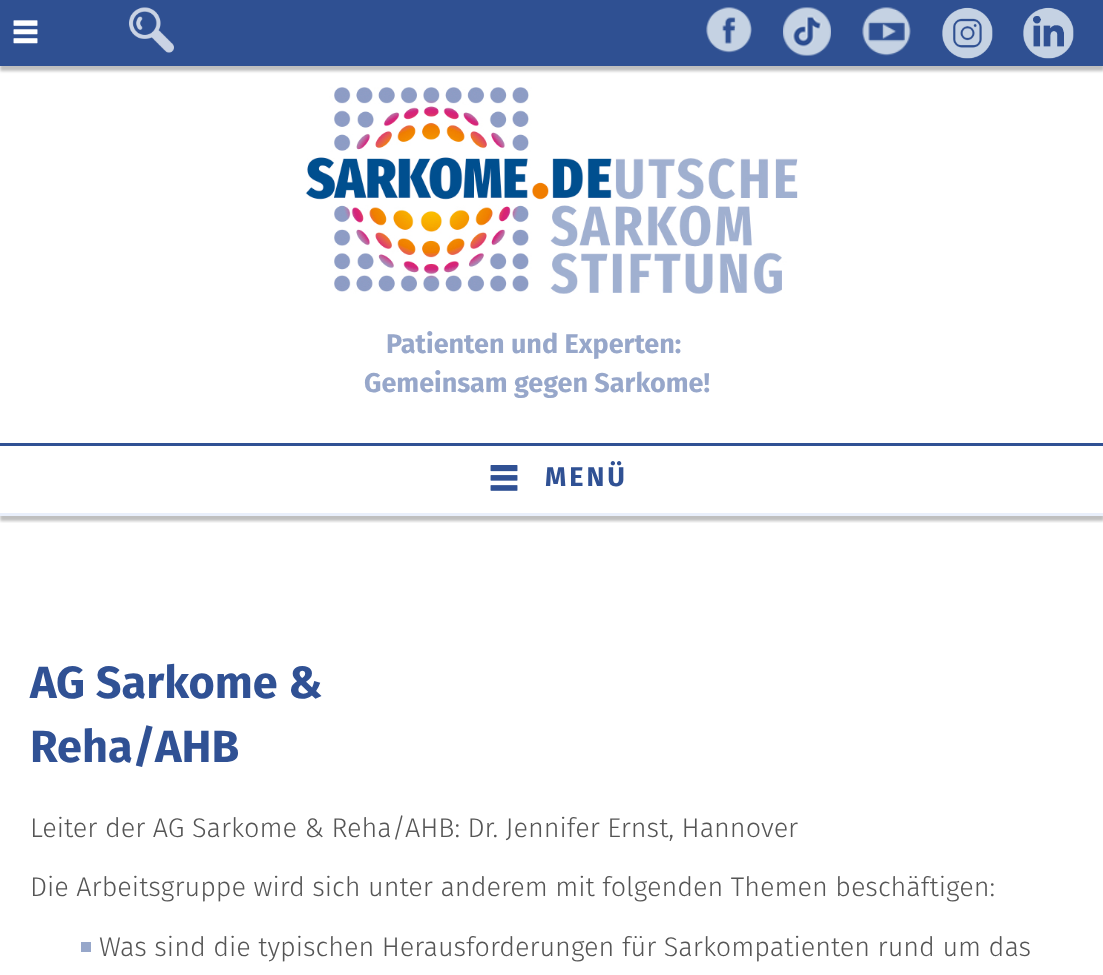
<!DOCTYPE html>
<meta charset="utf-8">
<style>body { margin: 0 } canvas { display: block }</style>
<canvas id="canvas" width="1103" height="975"></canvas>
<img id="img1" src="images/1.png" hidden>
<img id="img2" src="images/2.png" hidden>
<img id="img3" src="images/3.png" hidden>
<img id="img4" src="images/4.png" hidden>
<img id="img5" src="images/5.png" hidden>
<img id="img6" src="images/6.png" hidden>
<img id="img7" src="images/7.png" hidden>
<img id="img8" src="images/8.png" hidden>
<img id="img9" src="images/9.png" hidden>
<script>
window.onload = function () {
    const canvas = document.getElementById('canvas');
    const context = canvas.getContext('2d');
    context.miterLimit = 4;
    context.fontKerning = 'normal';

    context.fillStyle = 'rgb(255, 255, 255)';
    context.fillRect(0, 0, 1103, 975);
    context.fillStyle = 'rgba(0, 0, 0, 0.25)';
    context.filter = 'blur(1.5px)';
    context.beginPath();
    context.rect(0, 5, 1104, 66);
    context.fill();
    context.filter = 'none';
    context.fillStyle = 'rgb(47, 80, 146)';
    context.fillRect(0, 0, 1103, 66);
    context.drawImage(document.getElementById('img1'), 13, 20, 25, 24);
    context.drawImage(document.getElementById('img2'), 129, 7, 45, 46);
    context.drawImage(document.getElementById('img3'), 706, 7, 46, 46);
    context.drawImage(document.getElementById('img4'), 783, 7, 48, 49);
    context.drawImage(document.getElementById('img5'), 862, 7, 49, 49);
    context.drawImage(document.getElementById('img6'), 942, 7, 51, 52);
    context.drawImage(document.getElementById('img7'), 1023, 7, 51, 52);
    context.drawImage(document.getElementById('img8'), 305, 87, 493, 207);
    context.save();
    context.beginPath();
    context.rect(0, 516, 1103, 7);
    context.clip();
    context.fillStyle = 'rgba(0, 0, 0, 0.25)';
    context.filter = 'blur(1.5px)';
    context.beginPath();
    context.rect(0, 323, 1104, 198);
    context.fill();
    context.filter = 'none';
    context.restore();
    context.fillStyle = 'rgb(48, 81, 148)';
    context.fillRect(0, 443, 1103, 3);
    context.fillStyle = 'rgb(233, 239, 251)';
    context.fillRect(0, 513, 1103, 3);
    context.drawImage(document.getElementById('img9'), 490, 465, 28, 26);
    context.fillStyle = 'rgb(151, 167, 202)';
    context.fillRect(81, 942, 10, 10);
    context.font = 'bold 27px Fira Sans';
    context.fillText('Patienten und Experten:', 386, 353);
    context.fillText('Gemeinsam gegen Sarkome!', 364, 392);
    context.letterSpacing = '3px';
    context.fillStyle = 'rgb(48, 81, 148)';
    context.fillText('MENÜ', 545, 486);
    context.letterSpacing = '0px';
    context.font = 'bold 45px Fira Sans';
    context.fillText('AG Sarkome &', 30, 698);
    context.fillText('Reha/AHB', 30, 762);
    context.font = '300 27px Fira Sans';
    context.fillStyle = 'rgb(85, 85, 85)';
    context.fillText('Leiter der AG Sarkome & Reha/AHB: Dr. Jennifer Ernst, Hannover', 30, 837);
    context.fillText('Die Arbeitsgruppe wird sich unter anderem mit folgenden Themen beschäftigen:', 30, 896);
    context.fillText('Was sind die typischen Herausforderungen für Sarkompatienten rund um das', 99, 956);
};
</script>
